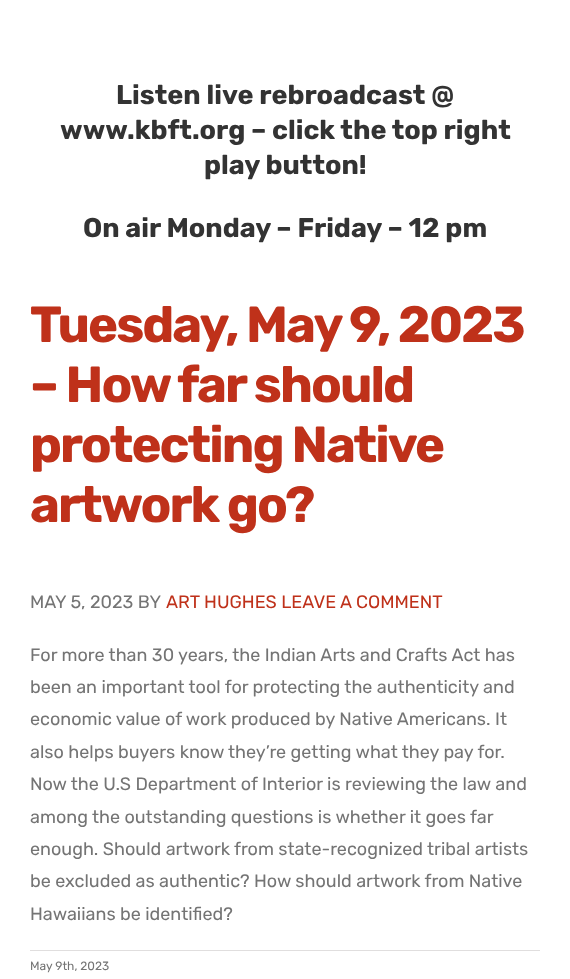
<!DOCTYPE html>
<meta charset="utf-8">
<style>body { margin: 0 } canvas { display: block }</style>
<canvas id="canvas" width="570" height="979"></canvas>
<script>
window.onload = function () {
    const canvas = document.getElementById('canvas');
    const context = canvas.getContext('2d');
    context.miterLimit = 4;
    context.fontKerning = 'normal';

    context.fillStyle = 'rgb(255, 255, 255)';
    context.fillRect(0, 0, 570, 979);
    context.fillStyle = 'rgb(224, 222, 222)';
    context.fillRect(30, 950, 510, 1);
    context.font = 'bold 27px Rubik';
    context.fillStyle = 'rgb(51, 51, 51)';
    context.fillText('Listen live rebroadcast @', 116, 104);
    context.fillText('www.kbft.org – click the top right', 60, 139);
    context.fillText('play button!', 204, 174);
    context.fillText('On air Monday – Friday – 12 pm', 83, 237);
    context.letterSpacing = '-2px';
    context.font = 'bold 50.75px Rubik';
    context.fillStyle = 'rgb(191, 49, 26)';
    context.fillText('Tuesday, May 9, 2023', 30, 342);
    context.fillText('– How far should', 30, 402);
    context.fillText('protecting Native', 30, 462);
    context.fillText('artwork go?', 30, 522);
    context.letterSpacing = '0px';
    context.font = '18px Rubik';
    context.fillStyle = 'rgb(116, 116, 116)';
    context.fillText('MAY 5, 2023 BY', 30, 608);
    context.fillStyle = 'rgb(191, 49, 26)';
    context.fillText('ART HUGHES LEAVE A COMMENT', 166, 608);
    context.fillStyle = 'rgb(116, 116, 116)';
    context.fillText('For more than 30 years, the Indian Arts and Crafts Act has', 30, 661);
    context.fillText('been an important tool for protecting the authenticity and', 30, 693);
    context.fillText('economic value of work produced by Native Americans. It', 30, 725);
    context.fillText('also helps buyers know they’re getting what they pay for.', 30, 758);
    context.fillText('Now the U.S Department of Interior is reviewing the law and', 30, 790);
    context.fillText('among the outstanding questions is whether it goes far', 30, 823);
    context.fillText('enough. Should artwork from state-recognized tribal artists', 30, 855);
    context.fillText('be excluded as authentic? How should artwork from Native', 30, 887);
    context.fillText('Hawaiians be identified?', 30, 920);
    context.font = '12px Rubik';
    context.fillText('May 9th, 2023', 30, 970);
};
</script>
